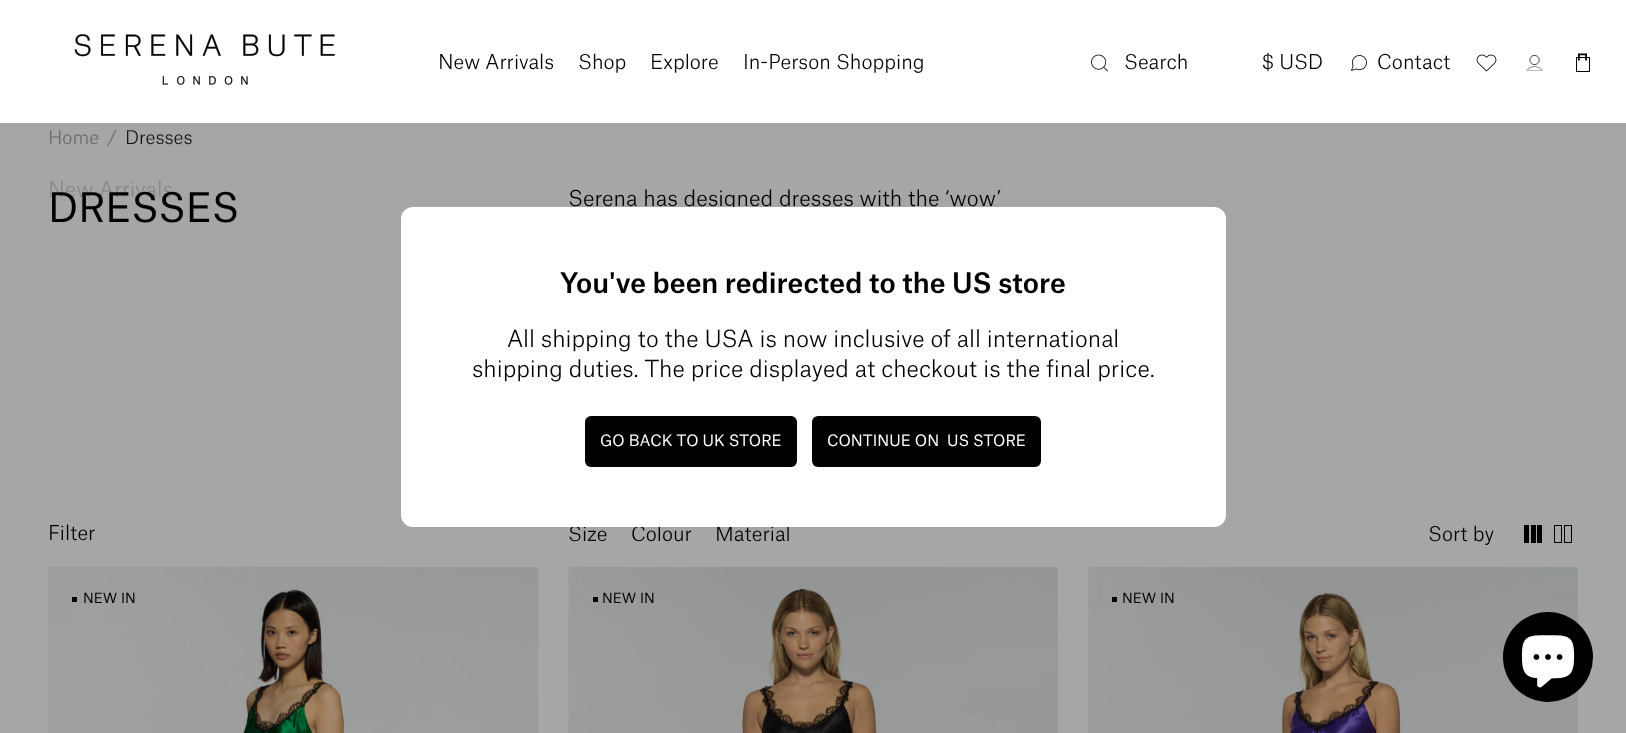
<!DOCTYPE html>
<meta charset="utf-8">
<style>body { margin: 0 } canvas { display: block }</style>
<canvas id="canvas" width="1626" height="733"></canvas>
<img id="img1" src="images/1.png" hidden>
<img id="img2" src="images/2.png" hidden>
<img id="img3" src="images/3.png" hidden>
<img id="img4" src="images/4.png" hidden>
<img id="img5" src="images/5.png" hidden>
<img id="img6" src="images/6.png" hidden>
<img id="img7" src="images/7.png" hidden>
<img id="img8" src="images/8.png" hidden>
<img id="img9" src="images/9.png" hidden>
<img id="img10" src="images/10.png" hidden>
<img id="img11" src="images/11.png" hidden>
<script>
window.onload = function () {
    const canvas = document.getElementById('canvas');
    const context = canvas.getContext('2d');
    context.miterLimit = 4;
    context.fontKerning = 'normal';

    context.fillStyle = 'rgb(166, 166, 166)';
    context.fillRect(0, 0, 1626, 733);
    context.fillStyle = 'rgb(255, 255, 255)';
    context.fillRect(0, 0, 1626, 123);
    context.drawImage(document.getElementById('img1'), 74, 34, 261, 51);
    context.drawImage(document.getElementById('img2'), 1091, 54, 17, 18);
    context.drawImage(document.getElementById('img3'), 1351, 55, 16, 16);
    context.drawImage(document.getElementById('img4'), 1476, 54, 21, 18);
    context.drawImage(document.getElementById('img5'), 1526, 54, 17, 17);
    context.drawImage(document.getElementById('img6'), 1576, 53, 14, 19);
    context.drawImage(document.getElementById('img7'), 1524, 525, 18, 18);
    context.strokeStyle = 'rgb(0, 0, 0)';
    context.strokeRect(1554.5, 525.5, 7, 17);
    context.strokeRect(1564.5, 525.5, 7, 17);
    context.drawImage(document.getElementById('img8'), 48, 567, 491, 166);
    context.fillStyle = 'rgb(0, 0, 0)';
    context.fillRect(72, 597, 5, 5);
    context.drawImage(document.getElementById('img9'), 568, 567, 490, 166);
    context.fillRect(593, 597, 5, 5);
    context.drawImage(document.getElementById('img10'), 1088, 567, 490, 166);
    context.fillRect(1112, 597, 5, 5);
    context.beginPath();
    context.arc(1548, 657, 45, 0, 2 * Math.PI);
    context.fill();
    context.drawImage(document.getElementById('img11'), 1521, 635, 54, 53);
    context.font = '300 19.5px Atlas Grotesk';
    context.fillText('New Arrivals', 438, 69);
    context.fillText('Shop', 578, 69);
    context.fillText('Explore', 650, 69);
    context.fillText('In-Person Shopping', 743, 69);
    context.fillText('Search', 1124, 69);
    context.fillText('$ USD', 1262, 69);
    context.fillText('Contact', 1377, 69);
    context.font = '300 21px Atlas Grotesk';
    context.fillStyle = 'rgb(136, 136, 136)';
    context.fillText('New Arrivals', 48, 197);
    context.font = '300 18px Atlas Grotesk';
    context.fillStyle = 'rgb(106, 106, 106)';
    context.fillText('Home', 48, 144);
    context.fillText('/', 107, 144);
    context.fillStyle = 'rgb(17, 17, 17)';
    context.fillText('Dresses', 125, 144);
    context.font = '39px Atlas Grotesk';
    context.fillStyle = 'rgb(0, 0, 0)';
    context.fillText('DRESSES', 48, 222);
    context.font = '300 21px Atlas Grotesk';
    context.fillText('Serena has designed dresses with the ‘wow’', 568, 206);
    context.font = '300 19.5px Atlas Grotesk';
    context.fillText('Filter', 48, 540);
    context.fillText('Size', 568, 541);
    context.fillText('Colour', 631, 541);
    context.fillText('Material', 715, 541);
    context.fillText('Sort by', 1428, 541);
    context.font = '13.5px Atlas Grotesk';
    context.fillText('NEW IN', 83, 603);
    context.fillText('NEW IN', 602, 603);
    context.fillText('NEW IN', 1122, 603);
    context.fillStyle = 'rgb(255, 255, 255)';
    context.beginPath();
    context.roundRect(401, 207, 825, 320, 12);
    context.fill();
    context.font = '500 27px Atlas Grotesk';
    context.fillStyle = 'rgb(0, 0, 0)';
    context.fillText('You\'ve been redirected to the US store', 560, 293);
    context.font = '300 22.5px Atlas Grotesk';
    context.fillText('All shipping to the USA is now inclusive of all international', 507, 347);
    context.fillText('shipping duties. The price displayed at checkout is the final price.', 472, 377);
    context.beginPath();
    context.roundRect(585, 416, 212, 51, 6);
    context.fill();
    context.font = '15px Atlas Grotesk';
    context.fillStyle = 'rgb(255, 255, 255)';
    context.fillText('GO BACK TO UK STORE', 600, 446);
    context.fillStyle = 'rgb(0, 0, 0)';
    context.beginPath();
    context.roundRect(812, 416, 229, 51, 6);
    context.fill();
    context.fillStyle = 'rgb(255, 255, 255)';
    context.fillText('CONTINUE ON', 827, 446);
    context.fillText('US', 947, 446);
    context.fillText('STORE', 973, 446);
};
</script>
